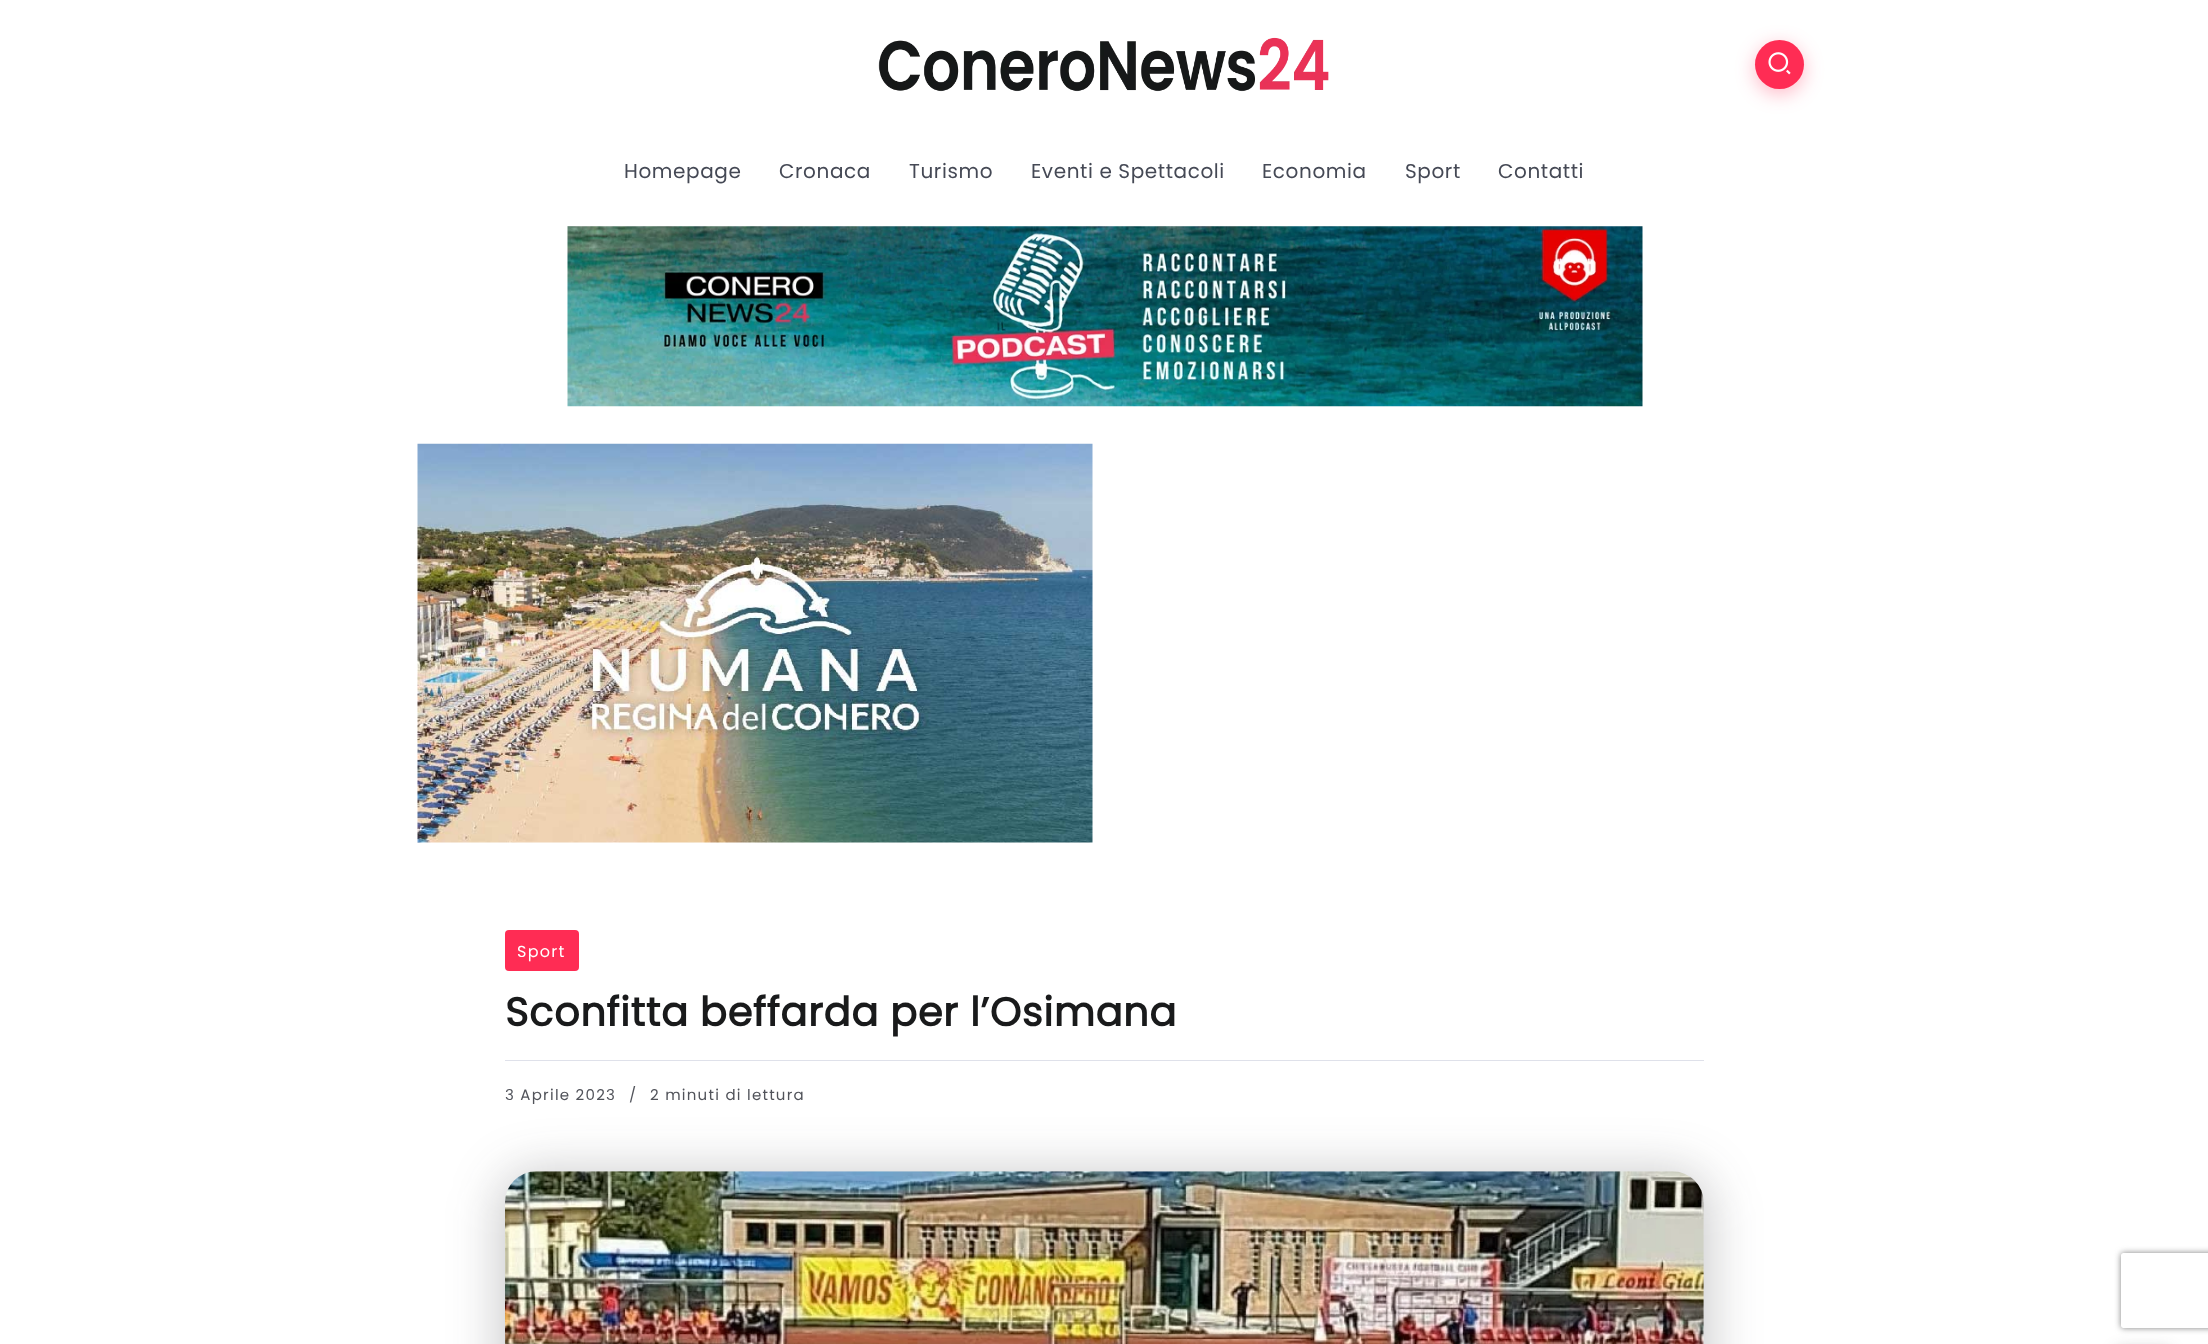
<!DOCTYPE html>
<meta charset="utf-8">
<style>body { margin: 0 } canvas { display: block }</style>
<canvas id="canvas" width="2208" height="1344"></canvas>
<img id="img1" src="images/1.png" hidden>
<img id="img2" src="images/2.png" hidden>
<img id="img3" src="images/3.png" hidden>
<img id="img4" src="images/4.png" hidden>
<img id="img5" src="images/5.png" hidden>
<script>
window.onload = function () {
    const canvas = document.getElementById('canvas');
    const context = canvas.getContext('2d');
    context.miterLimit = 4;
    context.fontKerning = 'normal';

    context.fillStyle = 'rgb(255, 255, 255)';
    context.fillRect(0, 0, 2208, 1344);
    context.drawImage(document.getElementById('img1'), 878, 37, 451, 55);
    context.fillStyle = 'rgba(255, 44, 84, 0.33)';
    context.filter = 'blur(9.5px)';
    context.beginPath();
    context.roundRect(1755, 45, 49, 49, 24.5);
    context.fill();
    context.filter = 'none';
    context.fillStyle = 'rgb(255, 44, 84)';
    context.beginPath();
    context.arc(1779.5, 64.5, 24.5, 0, 2 * Math.PI);
    context.fill();
    context.drawImage(document.getElementById('img2'), 1768, 52, 23, 23);
    context.drawImage(document.getElementById('img3'), 567, 226, 1076, 181);
    context.drawImage(document.getElementById('img4'), 417, 443, 676, 400);
    context.beginPath();
    context.roundRect(505, 930, 74, 41, 4);
    context.fill();
    context.fillStyle = 'rgb(223, 225, 234)';
    context.fillRect(505, 1060, 1199, 1);
    context.fillStyle = 'rgba(43, 44, 48, 0.25)';
    context.filter = 'blur(25px)';
    context.beginPath();
    context.roundRect(499, 1171, 1211, 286, 38);
    context.fill();
    context.filter = 'none';
    context.drawImage(document.getElementById('img5'), 505, 1171, 1199, 173);
    context.save();
    context.beginPath();
    context.moveTo(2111, 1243);
    context.lineTo(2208, 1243);
    context.lineTo(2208, 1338);
    context.lineTo(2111, 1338);
    context.closePath();
    context.moveTo(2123.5, 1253);
    context.lineTo(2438.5, 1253);
    context.bezierCurveTo(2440, 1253, 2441, 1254, 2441, 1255.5);
    context.lineTo(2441, 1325.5);
    context.bezierCurveTo(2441, 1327, 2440, 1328, 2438.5, 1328);
    context.lineTo(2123.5, 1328);
    context.bezierCurveTo(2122, 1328, 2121, 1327, 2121, 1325.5);
    context.lineTo(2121, 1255.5);
    context.bezierCurveTo(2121, 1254, 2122, 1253, 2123.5, 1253);
    context.closePath();
    context.clip('evenodd');
    context.fillStyle = 'rgb(128, 128, 128)';
    context.filter = 'blur(3px)';
    context.beginPath();
    context.roundRect(2121, 1253, 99, 75, 2.5);
    context.fill();
    context.filter = 'none';
    context.restore();
    context.fillStyle = 'rgba(40, 41, 47, 0.24)';
    context.filter = 'blur(7.5px)';
    context.beginPath();
    context.roundRect(2115, 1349, 56, 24, 6);
    context.fill();
    context.filter = 'none';
    context.letterSpacing = '0.6px';
    context.font = '20px Poppins';
    context.fillStyle = 'rgb(69, 73, 85)';
    context.fillText('Homepage', 624, 178);
    context.fillText('Cronaca', 779, 178);
    context.fillText('Turismo', 909, 178);
    context.fillText('Eventi e Spettacoli', 1031, 178);
    context.fillText('Economia', 1262, 178);
    context.fillText('Sport', 1405, 178);
    context.fillText('Contatti', 1498, 178);
    context.letterSpacing = '1.25px';
    context.font = '16px Poppins';
    context.fillStyle = 'rgb(255, 255, 255)';
    context.fillText('Sport', 517, 957);
    context.letterSpacing = '0.6px';
    context.font = 'bold 40px Poppins';
    context.fillStyle = 'rgb(25, 26, 27)';
    context.fillText('Sconfitta beffarda per l’Osimana', 505, 1026);
    context.letterSpacing = '1.25px';
    context.font = '15px Poppins';
    context.fillStyle = 'rgb(81, 83, 90)';
    context.fillText('3 Aprile 2023', 505, 1100);
    context.fillText('/', 629, 1100);
    context.fillText('2 minuti di lettura', 650, 1100);
};
</script>
